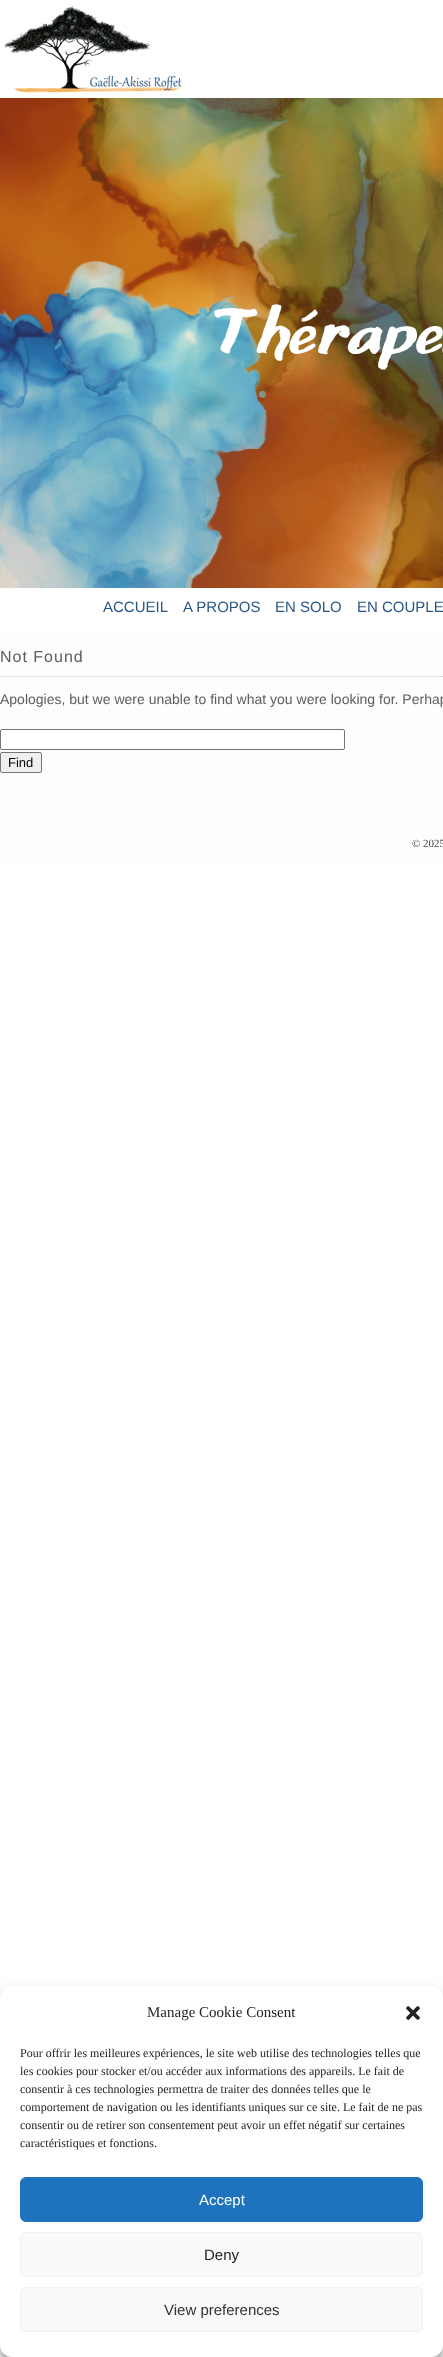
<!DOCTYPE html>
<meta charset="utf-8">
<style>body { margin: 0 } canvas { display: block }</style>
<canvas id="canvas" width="443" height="2357"></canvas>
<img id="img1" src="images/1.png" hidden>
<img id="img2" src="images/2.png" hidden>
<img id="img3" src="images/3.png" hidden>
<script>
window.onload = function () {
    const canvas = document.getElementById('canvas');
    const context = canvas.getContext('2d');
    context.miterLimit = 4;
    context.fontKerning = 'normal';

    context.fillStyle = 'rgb(255, 255, 255)';
    context.fillRect(0, 0, 443, 2357);
    context.drawImage(document.getElementById('img1'), 4, 6, 179, 90);
    context.drawImage(document.getElementById('img2'), 0, 98, 443, 490);
    context.fillStyle = 'rgb(253, 253, 252)';
    context.fillRect(0, 631, 443, 232);
    context.beginPath();
    context.moveTo(0, 676.5);
    context.lineTo(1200, 676.5);
    context.strokeStyle = 'rgb(204, 204, 204)';
    context.setLineDash([1, 1]);
    context.stroke();
    context.fillStyle = 'rgb(255, 255, 255)';
    context.beginPath();
    context.roundRect(0.5, 729.5, 344, 20, 1.5);
    context.fill();
    context.strokeStyle = 'rgb(118, 118, 118)';
    context.setLineDash([]);
    context.stroke();
    context.fillStyle = 'rgb(239, 239, 239)';
    context.beginPath();
    context.roundRect(0.5, 752.5, 41, 20, 1.5);
    context.fill();
    context.stroke();
    context.fillStyle = 'rgba(0, 0, 0, 0.23)';
    context.filter = 'blur(3px)';
    context.beginPath();
    context.roundRect(0, 1992, 443, 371, 12);
    context.fill();
    context.filter = 'none';
    context.fillStyle = 'rgba(0, 0, 0, 0.19)';
    context.filter = 'blur(10px)';
    context.beginPath();
    context.roundRect(0, 1996, 443, 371, 12);
    context.fill();
    context.filter = 'none';
    context.fillStyle = 'rgb(255, 255, 255)';
    context.beginPath();
    context.roundRect(0, 1986, 443, 371, 12);
    context.fill();
    context.drawImage(document.getElementById('img3'), 406, 2006, 14, 14);
    context.fillStyle = 'rgb(30, 115, 190)';
    context.beginPath();
    context.roundRect(20.5, 2177.5, 402, 44, 5.5);
    context.fill();
    context.strokeStyle = 'rgb(30, 115, 190)';
    context.stroke();
    context.fillStyle = 'rgb(249, 249, 249)';
    context.beginPath();
    context.roundRect(20.5, 2232.5, 402, 44, 5.5);
    context.fill();
    context.strokeStyle = 'rgb(242, 242, 242)';
    context.stroke();
    context.beginPath();
    context.roundRect(20.5, 2287.5, 402, 44, 5.5);
    context.fill();
    context.stroke();
    context.font = '15px Liberation Sans';
    context.fillStyle = 'rgb(42, 87, 133)';
    context.fillText('ACCUEIL', 103, 612);
    context.fillText('A PROPOS', 183, 612);
    context.fillText('EN SOLO', 275, 612);
    context.fillText('EN COUPLE', 357, 612);
    context.letterSpacing = '1px';
    context.font = '16px Liberation Sans';
    context.fillStyle = 'rgb(94, 92, 92)';
    context.fillText('Not Found', 0, 662);
    context.letterSpacing = '0px';
    context.font = '14px Liberation Sans';
    context.fillText('Apologies, but we were unable to find what you were looking for. Perhap', 0, 704);
    context.font = '13px Liberation Sans';
    context.fillStyle = 'rgb(0, 0, 0)';
    context.fillText('Find', 8, 767);
    context.font = '11px Liberation Serif';
    context.fillStyle = 'rgb(68, 68, 68)';
    context.fillText('© 2025', 412, 847);
    context.font = '15px Liberation Serif';
    context.fillStyle = 'rgb(34, 34, 34)';
    context.fillText('Manage Cookie Consent', 147, 2017);
    context.font = '12px Liberation Serif';
    context.fillText('Pour offrir les meilleures expériences, le site web utilise des technologies telles que', 20, 2057);
    context.fillText('les cookies pour stocker et/ou accéder aux informations des appareils. Le fait de', 20, 2075);
    context.fillText('consentir à ces technologies permettra de traiter des données telles que le', 20, 2093);
    context.fillText('comportement de navigation ou les identifiants uniques sur ce site. Le fait de ne pas', 20, 2111);
    context.fillText('consentir ou de retirer son consentement peut avoir un effet négatif sur certaines', 20, 2129);
    context.fillText('caractéristiques et fonctions.', 20, 2147);
    context.font = '15px Liberation Sans';
    context.fillStyle = 'rgb(255, 255, 255)';
    context.fillText('Accept', 199, 2205);
    context.fillStyle = 'rgb(34, 34, 34)';
    context.fillText('Deny', 204, 2260);
    context.fillStyle = 'rgb(51, 51, 51)';
    context.fillText('View preferences', 164, 2315);
};
</script>
